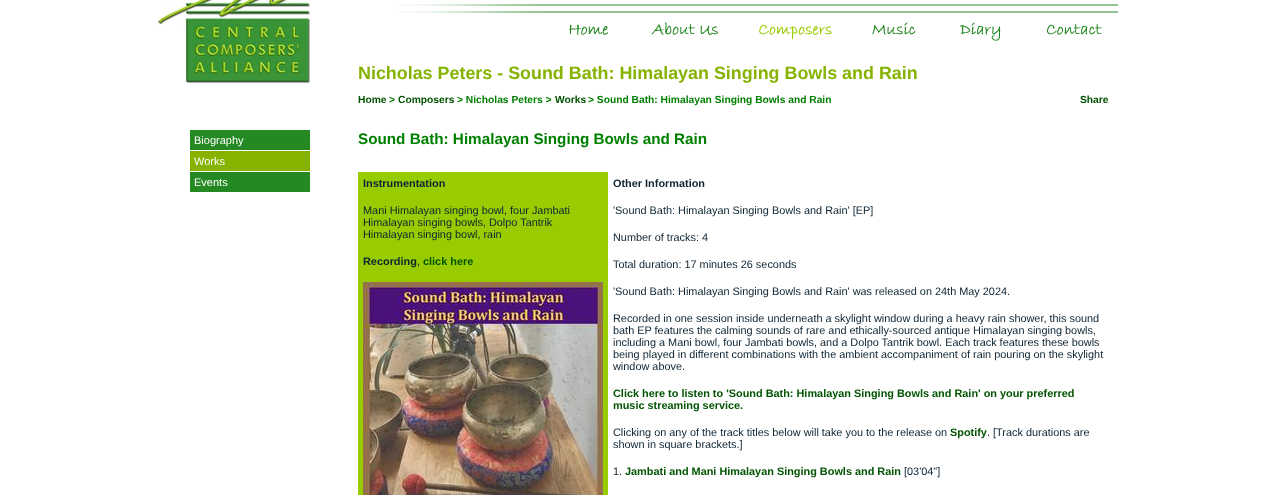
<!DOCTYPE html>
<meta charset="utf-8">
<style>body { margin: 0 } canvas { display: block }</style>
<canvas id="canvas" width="1266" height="495"></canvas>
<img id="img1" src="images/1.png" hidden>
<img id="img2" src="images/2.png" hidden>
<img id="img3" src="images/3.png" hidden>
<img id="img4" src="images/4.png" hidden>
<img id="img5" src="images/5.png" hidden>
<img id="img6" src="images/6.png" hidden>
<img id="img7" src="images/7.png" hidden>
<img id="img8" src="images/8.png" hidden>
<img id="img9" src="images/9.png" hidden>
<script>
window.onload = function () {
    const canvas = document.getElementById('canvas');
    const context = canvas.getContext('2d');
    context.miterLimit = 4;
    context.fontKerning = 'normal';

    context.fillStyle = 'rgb(255, 255, 255)';
    context.fillRect(0, 0, 1266, 495);
    context.drawImage(document.getElementById('img1'), 158, 0, 153, 84);
    context.fillStyle = 'rgb(36, 137, 35)';
    context.fillRect(190, 130, 120, 20);
    context.fillStyle = 'rgb(134, 179, 0)';
    context.fillRect(190, 151, 120, 20);
    context.fillStyle = 'rgb(36, 137, 35)';
    context.fillRect(190, 172, 120, 20);
    context.drawImage(document.getElementById('img2'), 398, 4, 720, 9);
    context.drawImage(document.getElementById('img3'), 569, 24, 39, 11);
    context.drawImage(document.getElementById('img4'), 651, 22, 67, 13);
    context.drawImage(document.getElementById('img5'), 759, 24, 73, 16);
    context.drawImage(document.getElementById('img6'), 872, 22, 44, 13);
    context.drawImage(document.getElementById('img7'), 960, 22, 41, 19);
    context.drawImage(document.getElementById('img8'), 1047, 24, 55, 11);
    context.fillStyle = 'rgb(153, 204, 0)';
    context.fillRect(358, 172, 250, 323);
    context.drawImage(document.getElementById('img9'), 363, 282, 240, 213);
    context.font = '11px Liberation Sans';
    context.fillStyle = 'rgb(255, 255, 255)';
    context.fillText('Biography', 194, 144);
    context.fillText('Works', 194, 165);
    context.fillText('Events', 194, 186);
    context.font = 'bold 17.9px Liberation Sans';
    context.fillStyle = 'rgb(134, 179, 0)';
    context.fillText('Nicholas Peters - Sound Bath: Himalayan Singing Bowls and Rain', 358, 79);
    context.font = 'bold 10.25px Liberation Sans';
    context.fillStyle = 'rgb(0, 83, 0)';
    context.fillText('Home', 358, 103);
    context.fillStyle = 'rgb(0, 128, 0)';
    context.fillText('>', 389, 103);
    context.fillStyle = 'rgb(0, 83, 0)';
    context.fillText('Composers', 398, 103);
    context.fillStyle = 'rgb(0, 128, 0)';
    context.fillText('> Nicholas Peters >', 457, 103);
    context.fillStyle = 'rgb(0, 83, 0)';
    context.fillText('Works', 555, 103);
    context.fillStyle = 'rgb(0, 128, 0)';
    context.fillText('> Sound Bath: Himalayan Singing Bowls and Rain', 588, 103);
    context.fillStyle = 'rgb(0, 83, 0)';
    context.fillText('Share', 1080, 103);
    context.font = 'bold 15.25px Liberation Sans';
    context.fillStyle = 'rgb(0, 128, 0)';
    context.fillText('Sound Bath: Himalayan Singing Bowls and Rain', 358, 144);
    context.font = 'bold 10.9px Liberation Sans';
    context.fillStyle = 'rgb(13, 36, 51)';
    context.fillText('Instrumentation', 363, 187);
    context.font = '10.9px Liberation Sans';
    context.fillText('Mani Himalayan singing bowl, four Jambati', 363, 214);
    context.fillText('Himalayan singing bowls, Dolpo Tantrik', 363, 226);
    context.fillText('Himalayan singing bowl, rain', 363, 238);
    context.font = 'bold 10.9px Liberation Sans';
    context.fillText('Recording', 363, 265);
    context.font = '10.9px Liberation Sans';
    context.fillText(',', 417, 265);
    context.font = 'bold 10.9px Liberation Sans';
    context.fillStyle = 'rgb(0, 83, 0)';
    context.fillText('click here', 423, 265);
    context.fillStyle = 'rgb(13, 36, 51)';
    context.fillText('Other Information', 613, 187);
    context.font = '10.9px Liberation Sans';
    context.fillText('\'Sound Bath: Himalayan Singing Bowls and Rain\' [EP]', 613, 214);
    context.fillText('Number of tracks: 4', 613, 241);
    context.fillText('Total duration: 17 minutes 26 seconds', 613, 268);
    context.fillText('\'Sound Bath: Himalayan Singing Bowls and Rain\' was released on 24th May 2024.', 613, 295);
    context.fillText('Recorded in one session inside underneath a skylight window during a heavy rain shower, this sound', 613, 322);
    context.fillText('bath EP features the calming sounds of rare and ethically-sourced antique Himalayan singing bowls,', 613, 334);
    context.fillText('including a Mani bowl, four Jambati bowls, and a Dolpo Tantrik bowl. Each track features these bowls', 613, 346);
    context.fillText('being played in different combinations with the ambient accompaniment of rain pouring on the skylight', 613, 358);
    context.fillText('window above.', 613, 370);
    context.font = 'bold 10.9px Liberation Sans';
    context.fillStyle = 'rgb(0, 83, 0)';
    context.fillText('Click here to listen to \'Sound Bath: Himalayan Singing Bowls and Rain\' on your preferred', 613, 397);
    context.fillText('music streaming service.', 613, 409);
    context.font = '10.9px Liberation Sans';
    context.fillStyle = 'rgb(13, 36, 51)';
    context.fillText('Clicking on any of the track titles below will take you to the release on', 613, 436);
    context.font = 'bold 10.9px Liberation Sans';
    context.fillStyle = 'rgb(0, 83, 0)';
    context.fillText('Spotify', 950, 436);
    context.font = '10.9px Liberation Sans';
    context.fillStyle = 'rgb(13, 36, 51)';
    context.fillText('. [Track durations are', 987, 436);
    context.fillText('shown in square brackets.]', 613, 448);
    context.fillText('1.', 613, 475);
    context.font = 'bold 10.9px Liberation Sans';
    context.fillStyle = 'rgb(0, 83, 0)';
    context.fillText('Jambati and Mani Himalayan Singing Bowls and Rain', 625, 475);
    context.font = '10.9px Liberation Sans';
    context.fillStyle = 'rgb(13, 36, 51)';
    context.fillText('[03\'04"]', 904, 475);
};
</script>
